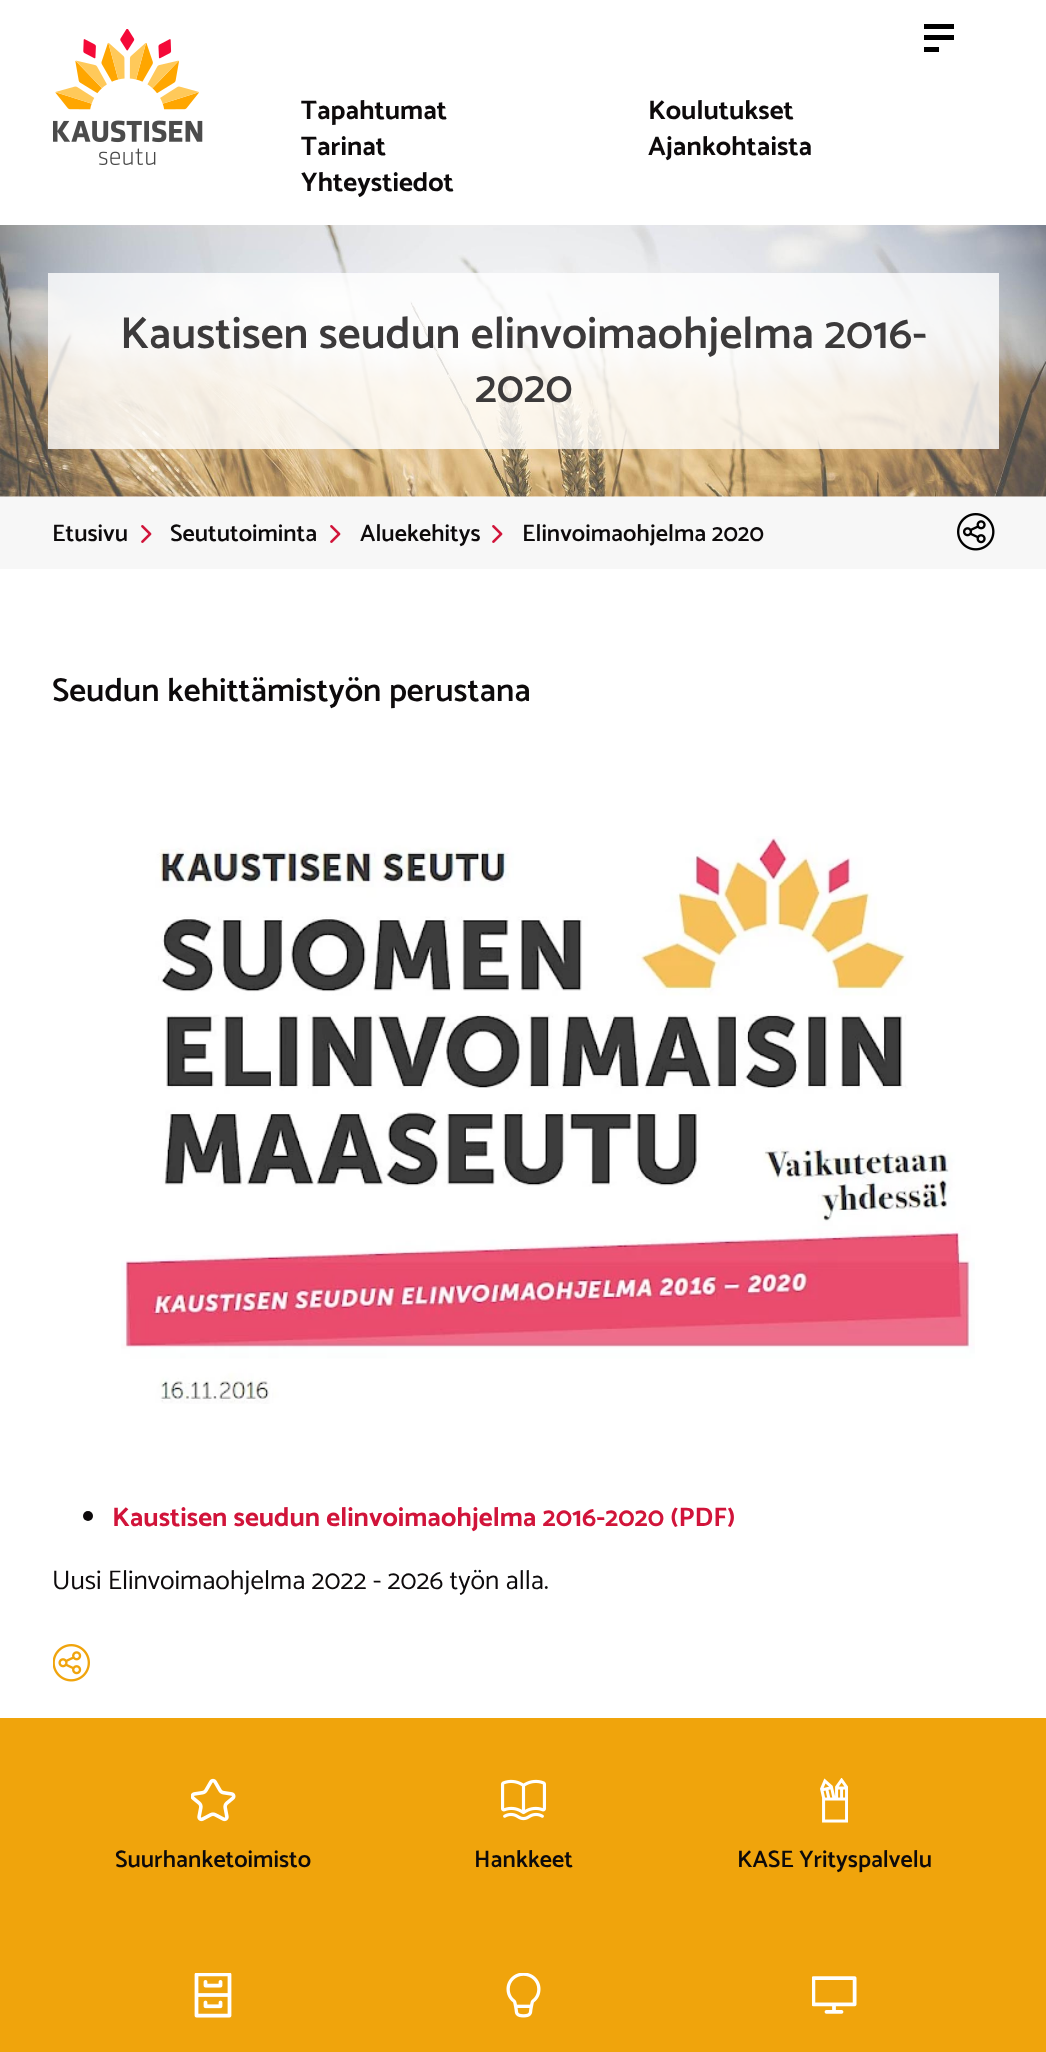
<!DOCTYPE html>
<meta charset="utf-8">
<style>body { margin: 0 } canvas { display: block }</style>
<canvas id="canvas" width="1046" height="2052"></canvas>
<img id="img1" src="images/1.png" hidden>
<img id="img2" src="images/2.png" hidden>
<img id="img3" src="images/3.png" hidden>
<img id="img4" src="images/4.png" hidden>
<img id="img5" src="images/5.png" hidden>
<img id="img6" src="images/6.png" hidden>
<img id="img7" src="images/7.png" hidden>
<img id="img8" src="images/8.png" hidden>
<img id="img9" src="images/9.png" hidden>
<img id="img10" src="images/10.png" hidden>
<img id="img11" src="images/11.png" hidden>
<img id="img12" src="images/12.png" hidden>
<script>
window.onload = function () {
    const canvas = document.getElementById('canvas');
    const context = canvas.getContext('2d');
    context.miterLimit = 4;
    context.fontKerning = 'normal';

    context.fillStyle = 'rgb(255, 255, 255)';
    context.fillRect(0, 0, 1046, 2052);
    context.drawImage(document.getElementById('img1'), 53, 29, 150, 136);
    context.fillStyle = 'rgb(0, 0, 0)';
    context.fillRect(924, 24, 30, 5);
    context.fillRect(924, 35, 30, 5);
    context.fillRect(924, 47, 15, 5);
    context.drawImage(document.getElementById('img2'), 0, 225, 1046, 272);
    context.fillStyle = 'rgba(255, 255, 255, 0.8)';
    context.fillRect(48, 273, 951, 176);
    context.fillStyle = 'rgb(247, 247, 247)';
    context.fillRect(0, 497, 1046, 72);
    context.drawImage(document.getElementById('img3'), 141, 525, 11, 18);
    context.drawImage(document.getElementById('img3'), 330, 525, 11, 18);
    context.drawImage(document.getElementById('img3'), 492, 525, 11, 18);
    context.drawImage(document.getElementById('img4'), 957, 513, 38, 38);
    context.drawImage(document.getElementById('img5'), 121, 836, 854, 568);
    context.fillStyle = 'rgb(13, 10, 11)';
    context.beginPath();
    context.arc(88, 1516, 5, 0, 2 * Math.PI);
    context.fill();
    context.drawImage(document.getElementById('img6'), 53, 1644, 37, 38);
    context.fillStyle = 'rgb(240, 164, 12)';
    context.fillRect(0, 1718, 1046, 334);
    context.drawImage(document.getElementById('img7'), 191, 1778, 45, 44);
    context.drawImage(document.getElementById('img8'), 501, 1779, 45, 42);
    context.drawImage(document.getElementById('img9'), 820, 1778, 28, 45);
    context.drawImage(document.getElementById('img10'), 194, 1973, 38, 45);
    context.drawImage(document.getElementById('img11'), 506, 1973, 35, 45);
    context.drawImage(document.getElementById('img12'), 812, 1976, 45, 38);
    context.font = 'bold 27px Catamaran';
    context.fillStyle = 'rgb(13, 10, 11)';
    context.fillText('Tapahtumat', 301, 119);
    context.fillText('Koulutukset', 648, 119);
    context.fillText('Tarinat', 301, 155);
    context.fillText('Ajankohtaista', 648, 155);
    context.fillText('Yhteystiedot', 301, 191);
    context.font = '600 45px Catamaran';
    context.fillStyle = 'rgb(60, 58, 59)';
    context.fillText('Kaustisen seudun elinvoimaohjelma 2016-', 120, 348);
    context.fillText('2020', 475, 402);
    context.font = '600 24px Catamaran';
    context.fillStyle = 'rgb(13, 10, 11)';
    context.fillText('Etusivu', 52, 541);
    context.fillText('Seututoiminta', 170, 541);
    context.fillText('Aluekehitys', 360, 541);
    context.fillText('Elinvoimaohjelma 2020', 522, 541);
    context.font = '600 33.1px Catamaran';
    context.fillText('Seudun kehittämistyön perustana', 52, 701);
    context.font = 'bold 27px Catamaran';
    context.fillStyle = 'rgb(209, 20, 58)';
    context.fillText('Kaustisen seudun elinvoimaohjelma 2016-2020 (PDF)', 112, 1526);
    context.font = '27px Catamaran';
    context.fillStyle = 'rgb(13, 10, 11)';
    context.fillText('Uusi Elinvoimaohjelma 2022 - 2026 työn alla.', 52, 1589);
    context.font = '600 24px Catamaran';
    context.fillText('Suurhanketoimisto', 115, 1867);
    context.fillText('Hankkeet', 474, 1867);
    context.fillText('KASE Yrityspalvelu', 737, 1867);
};
</script>
